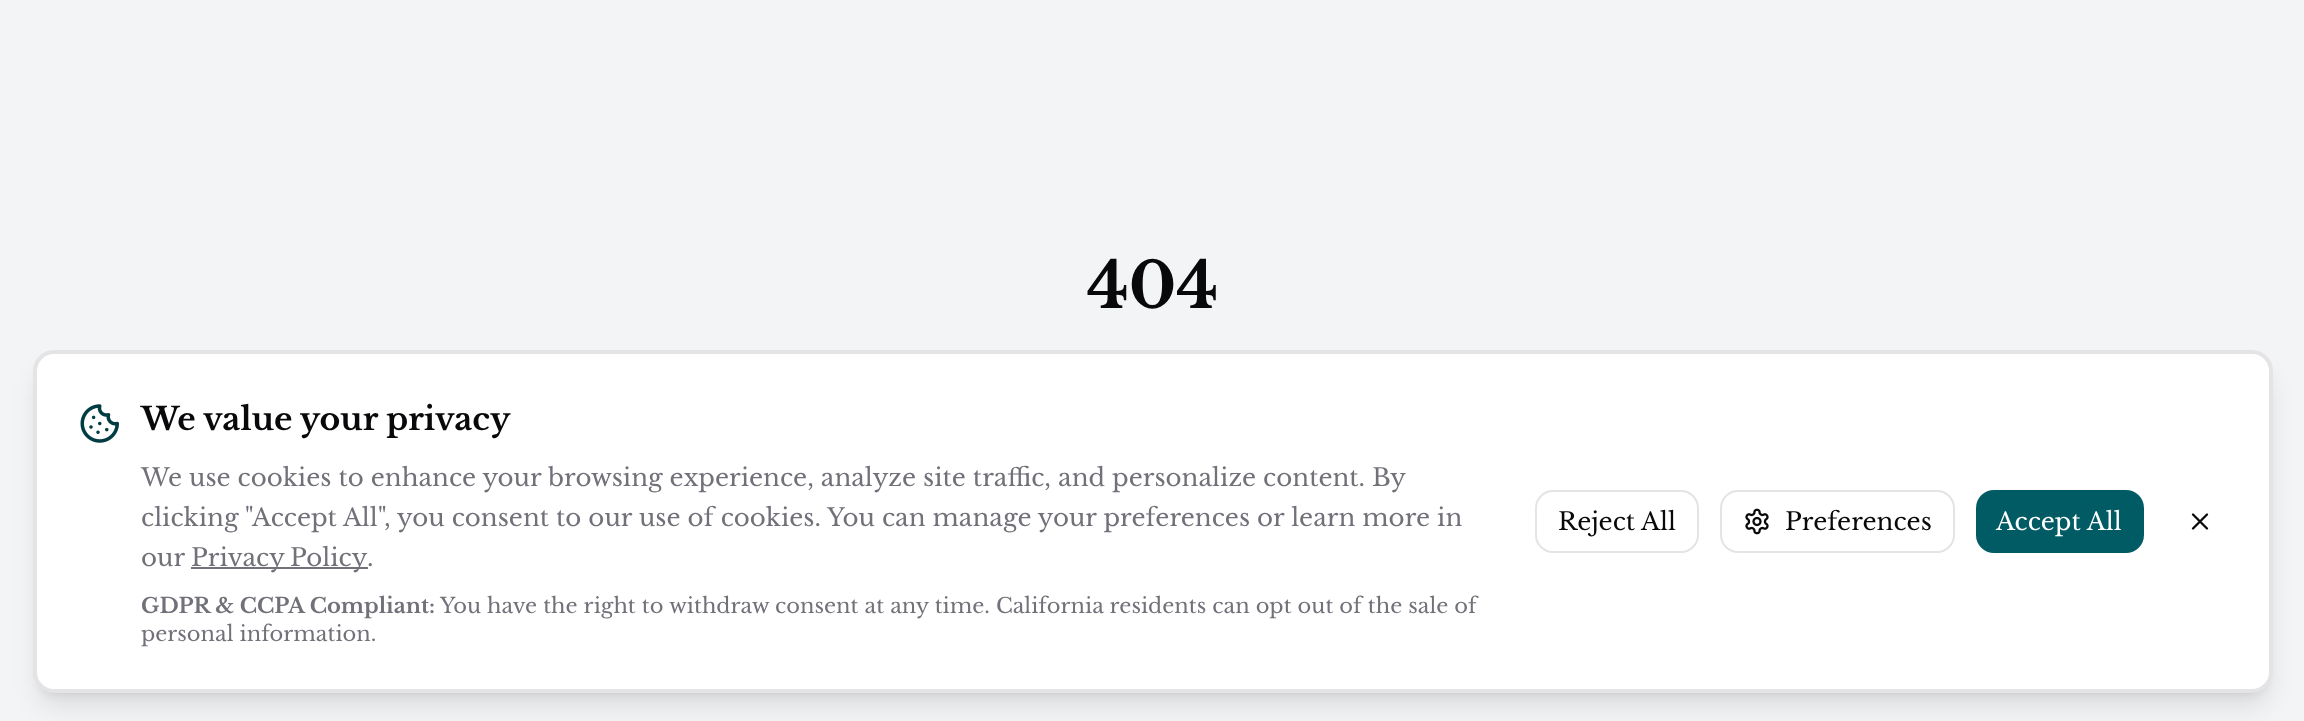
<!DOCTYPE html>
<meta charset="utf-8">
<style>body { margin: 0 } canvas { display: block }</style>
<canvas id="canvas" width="2304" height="721"></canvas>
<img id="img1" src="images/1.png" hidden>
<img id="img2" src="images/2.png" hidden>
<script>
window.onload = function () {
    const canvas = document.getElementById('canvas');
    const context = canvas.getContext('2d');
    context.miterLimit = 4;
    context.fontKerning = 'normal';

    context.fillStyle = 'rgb(243, 244, 246)';
    context.fillRect(0, 0, 2304, 721);
    context.fillStyle = 'rgba(0, 0, 0, 0.1)';
    context.filter = 'blur(5px)';
    context.beginPath();
    context.roundRect(40, 364, 2226, 329, 14);
    context.fill();
    context.filter = 'none';
    context.filter = 'blur(13px)';
    context.beginPath();
    context.roundRect(39, 373, 2229, 332, 16);
    context.fill();
    context.filter = 'none';
    context.fillStyle = 'rgb(255, 255, 255)';
    context.beginPath();
    context.roundRect(35, 352, 2236, 339, 19);
    context.fill();
    context.strokeStyle = 'rgb(228, 228, 231)';
    context.lineWidth = 4;
    context.stroke();
    context.drawImage(document.getElementById('img1'), 80, 404, 39, 39);
    context.fillStyle = 'rgb(113, 113, 122)';
    context.fillRect(191, 567, 177, 2);
    context.beginPath();
    context.roundRect(1536, 491, 162, 61, 17);
    context.lineWidth = 2;
    context.stroke();
    context.beginPath();
    context.roundRect(1721, 491, 233, 61, 17);
    context.stroke();
    context.drawImage(document.getElementById('img2'), 1745, 508, 24, 27);
    context.fillStyle = 'rgb(0, 91, 101)';
    context.beginPath();
    context.roundRect(1976, 490, 168, 63, 18);
    context.fill();
    context.beginPath();
    context.moveTo(2207, 514.5);
    context.lineTo(2193, 528.5);
    context.moveTo(2193, 514.5);
    context.lineTo(2207, 528.5);
    context.strokeStyle = 'rgb(9, 9, 11)';
    context.lineWidth = 2.3;
    context.lineCap = 'round';
    context.lineJoin = 'round';
    context.stroke();
    context.font = 'bold 63px Libre Baskerville';
    context.fillStyle = 'rgb(9, 9, 11)';
    context.fillText('404', 1087, 308);
    context.font = 'bold 31.5px Libre Baskerville';
    context.fillText('We value your privacy', 141, 430);
    context.font = '24.5px Libre Baskerville';
    context.fillStyle = 'rgb(113, 113, 122)';
    context.fillText('We use cookies to enhance your browsing experience, analyze site traffic, and personalize content. By', 141, 486);
    context.fillText('clicking "Accept All", you consent to our use of cookies. You can manage your preferences or learn more in', 141, 526);
    context.fillText('our', 141, 566);
    context.wordSpacing = '-1px';
    context.fillText('Privacy Policy', 191, 566);
    context.wordSpacing = '0px';
    context.fillText('.', 367, 566);
    context.font = 'bold 21px Libre Baskerville';
    context.fillText('GDPR & CCPA Compliant:', 141, 613);
    context.font = '21px Libre Baskerville';
    context.fillText('You have the right to withdraw consent at any time. California residents can opt out of the sale of', 440, 613);
    context.fillText('personal information.', 141, 641);
    context.font = '24.5px Libre Baskerville';
    context.fillStyle = 'rgb(9, 9, 11)';
    context.fillText('Reject All', 1558, 530);
    context.fillText('Preferences', 1785, 530);
    context.fillStyle = 'rgb(255, 255, 255)';
    context.fillText('Accept All', 1996, 530);
};
</script>
